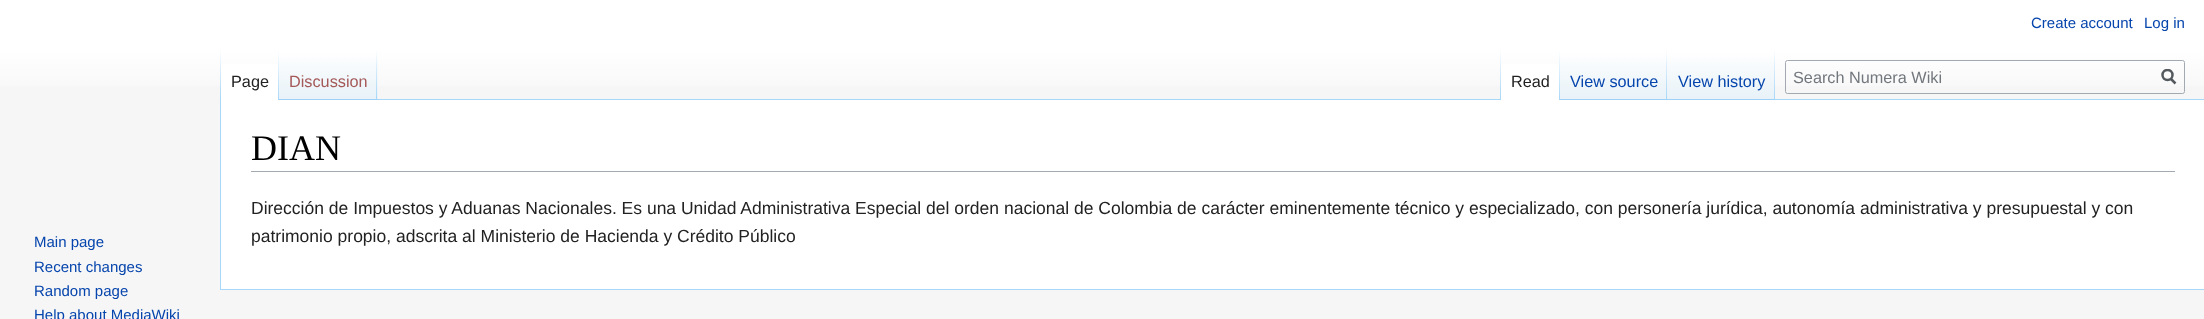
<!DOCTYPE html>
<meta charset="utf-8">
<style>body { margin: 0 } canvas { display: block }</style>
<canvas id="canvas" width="2204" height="319"></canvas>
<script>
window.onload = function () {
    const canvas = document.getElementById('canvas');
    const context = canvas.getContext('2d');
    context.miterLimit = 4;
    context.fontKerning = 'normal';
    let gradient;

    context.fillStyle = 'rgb(246, 246, 246)';
    context.fillRect(0, 0, 2204, 319);
    gradient = context.createLinearGradient(1103, 0, 1103, 100);
    gradient.addColorStop(0.5, 'rgb(255, 255, 255)');
    gradient.addColorStop(1, 'rgb(246, 246, 246)');
    context.fillStyle = gradient;
    context.fillRect(0, 0, 2204, 86);
    context.fillStyle = 'rgb(167, 215, 249)';
    context.fillRect(220, 289, 1984, 1);
    context.fillRect(220, 99, 1, 191);
    gradient = context.createLinearGradient(221, 50, 221, 100);
    gradient.addColorStop(0, 'rgba(167, 215, 249, 0)');
    gradient.addColorStop(1, 'rgb(167, 215, 249)');
    context.fillStyle = gradient;
    context.fillRect(220, 50, 1, 50);
    context.fillStyle = 'rgb(255, 255, 255)';
    context.fillRect(221, 64, 57, 36);
    gradient = context.createLinearGradient(278, 50, 278, 100);
    gradient.addColorStop(0, 'rgb(255, 255, 255)');
    gradient.addColorStop(1, 'rgb(167, 215, 249)');
    context.fillStyle = gradient;
    context.fillRect(278, 50, 1, 50);
    gradient = context.createLinearGradient(328, 100, 328, 50);
    gradient.addColorStop(0, 'rgb(119, 193, 246)');
    gradient.addColorStop(0.03, 'rgb(232, 242, 248)');
    gradient.addColorStop(1, 'rgb(255, 255, 255)');
    context.fillStyle = gradient;
    context.fillRect(279, 57, 99, 43);
    gradient = context.createLinearGradient(377, 50, 377, 100);
    gradient.addColorStop(0, 'rgba(167, 215, 249, 0)');
    gradient.addColorStop(1, 'rgb(167, 215, 249)');
    context.fillStyle = gradient;
    context.fillRect(376, 50, 1, 50);
    context.fillStyle = 'rgb(167, 215, 249)';
    context.fillRect(378, 99, 1826, 1);
    gradient = context.createLinearGradient(1501, 50, 1501, 100);
    gradient.addColorStop(0, 'rgba(167, 215, 249, 0)');
    gradient.addColorStop(1, 'rgb(167, 215, 249)');
    context.fillStyle = gradient;
    context.fillRect(1500, 50, 1, 50);
    context.fillStyle = 'rgb(255, 255, 255)';
    context.fillRect(1501, 64, 58, 36);
    gradient = context.createLinearGradient(1559, 50, 1559, 100);
    gradient.addColorStop(0, 'rgb(255, 255, 255)');
    gradient.addColorStop(1, 'rgb(167, 215, 249)');
    context.fillStyle = gradient;
    context.fillRect(1559, 50, 1, 50);
    gradient = context.createLinearGradient(1614, 100, 1614, 50);
    gradient.addColorStop(0, 'rgb(119, 193, 246)');
    gradient.addColorStop(0.03, 'rgb(232, 242, 248)');
    gradient.addColorStop(1, 'rgb(255, 255, 255)');
    context.fillStyle = gradient;
    context.fillRect(1560, 57, 108, 43);
    gradient = context.createLinearGradient(1667, 50, 1667, 100);
    gradient.addColorStop(0, 'rgba(167, 215, 249, 0)');
    gradient.addColorStop(1, 'rgb(167, 215, 249)');
    context.fillStyle = gradient;
    context.fillRect(1666, 50, 1, 50);
    gradient = context.createLinearGradient(1721, 100, 1721, 50);
    gradient.addColorStop(0, 'rgb(119, 193, 246)');
    gradient.addColorStop(0.03, 'rgb(232, 242, 248)');
    gradient.addColorStop(1, 'rgb(255, 255, 255)');
    context.fillStyle = gradient;
    context.fillRect(1668, 57, 107, 43);
    gradient = context.createLinearGradient(1774, 50, 1774, 100);
    gradient.addColorStop(0, 'rgba(167, 215, 249, 0)');
    gradient.addColorStop(1, 'rgb(167, 215, 249)');
    context.fillStyle = gradient;
    context.fillRect(1774, 50, 1, 50);
    context.beginPath();
    context.roundRect(1785.5, 60.5, 399, 33, 2);
    context.strokeStyle = 'rgb(162, 169, 177)';
    context.stroke();
    context.beginPath();
    context.moveTo(2175.5, 83.5);
    context.lineTo(2170.5, 78.5);
    context.strokeStyle = 'rgb(84, 89, 93)';
    context.lineWidth = 2.5;
    context.stroke();
    context.save();
    context.beginPath();
    context.rect(2161, 69, 15, 16);
    context.clip();
    context.beginPath();
    context.arc(2167.5, 75, 5, 0, 2 * Math.PI);
    context.stroke();
    context.restore();
    context.fillStyle = 'rgb(255, 255, 255)';
    context.fillRect(221, 100, 1983, 189);
    context.fillStyle = 'rgb(162, 169, 177)';
    context.fillRect(251, 171, 1924, 1);
    context.font = '15px Liberation Sans';
    context.fillStyle = 'rgb(6, 69, 173)';
    context.fillText('Create account', 2031, 28);
    context.fillText('Log in', 2144, 28);
    context.font = '16.25px Liberation Sans';
    context.fillStyle = 'rgb(34, 34, 34)';
    context.fillText('Page', 231, 87);
    context.fillStyle = 'rgb(165, 88, 88)';
    context.fillText('Discussion', 289, 87);
    context.fillStyle = 'rgb(34, 34, 34)';
    context.fillText('Read', 1511, 87);
    context.fillStyle = 'rgb(6, 69, 173)';
    context.fillText('View source', 1570, 87);
    context.fillText('View history', 1678, 87);
    context.fillStyle = 'rgb(114, 119, 125)';
    context.fillText('Search Numera Wiki', 1793, 83);
    context.font = '15px Liberation Sans';
    context.fillStyle = 'rgb(6, 69, 173)';
    context.fillText('Main page', 34, 247);
    context.fillText('Recent changes', 34, 272);
    context.fillText('Random page', 34, 296);
    context.fillText('Help about MediaWiki', 34, 320);
    context.font = '36px Liberation Serif';
    context.fillStyle = 'rgb(0, 0, 0)';
    context.fillText('DIAN', 251, 160);
    context.font = '17.5px Liberation Sans';
    context.fillStyle = 'rgb(34, 34, 34)';
    context.fillText('Dirección de Impuestos y Aduanas Nacionales. Es una Unidad Administrativa Especial del orden nacional de Colombia de carácter eminentemente técnico y especializado, con personería jurídica, autonomía administrativa y presupuestal y con', 251, 214);
    context.fillText('patrimonio propio, adscrita al Ministerio de Hacienda y Crédito Público', 251, 242);
};
</script>
